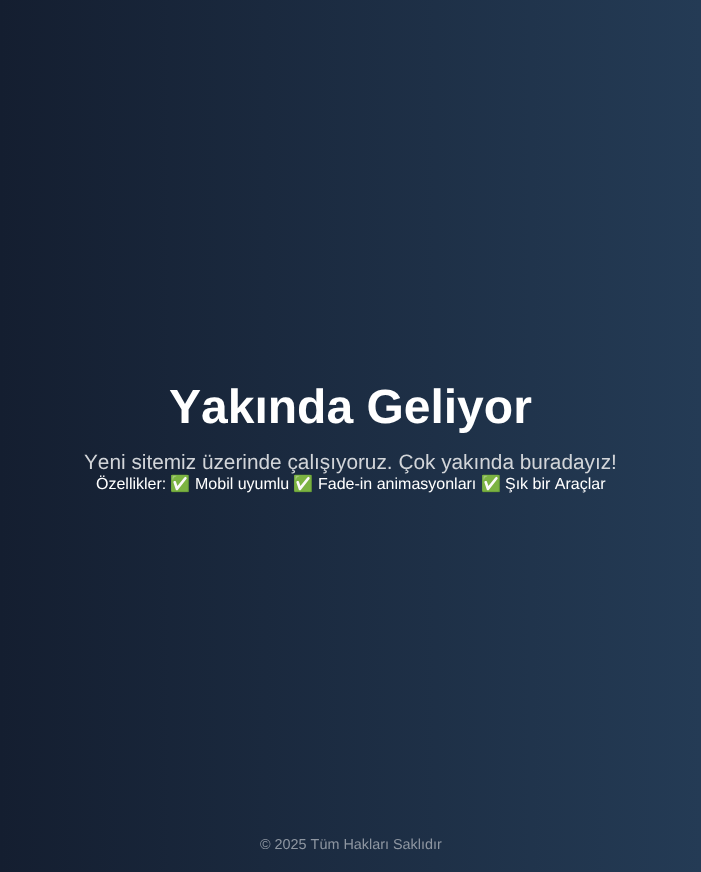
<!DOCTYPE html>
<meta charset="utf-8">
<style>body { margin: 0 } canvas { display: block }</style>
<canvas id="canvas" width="701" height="872"></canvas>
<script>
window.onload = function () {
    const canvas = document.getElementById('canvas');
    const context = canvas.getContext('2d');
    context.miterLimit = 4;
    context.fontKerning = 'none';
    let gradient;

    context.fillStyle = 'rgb(255, 255, 255)';
    context.fillRect(0, 0, 701, 872);
    gradient = context.createLinearGradient(0, 436, 701, 436);
    gradient.addColorStop(0, 'rgb(20, 30, 48)');
    gradient.addColorStop(1, 'rgb(36, 59, 85)');
    context.fillStyle = gradient;
    context.fillRect(0, 0, 701, 872);
    context.font = 'bold 48px Liberation Sans';
    context.fillStyle = 'rgb(255, 255, 255)';
    context.fillText('Yakında Geliyor', 169, 423);
    context.font = '20.8px Liberation Sans';
    context.fillStyle = 'rgb(210, 213, 217)';
    context.fillText('Yeni sitemiz üzerinde çalışıyoruz. Çok yakında buradayız!', 84, 469);
    context.font = '16px Liberation Sans';
    context.fillStyle = 'rgb(255, 255, 255)';
    context.fillText('Özellikler:', 96, 489);
    context.font = '16px Noto Color Emoji';
    context.fillText('✅', 170, 489);
    context.font = '16px Liberation Sans';
    context.fillText('Mobil uyumlu', 195, 489);
    context.font = '16px Noto Color Emoji';
    context.fillText('✅', 293, 489);
    context.font = '16px Liberation Sans';
    context.fillText('Fade-in animasyonları', 318, 489);
    context.font = '16px Noto Color Emoji';
    context.fillText('✅', 481, 489);
    context.font = '16px Liberation Sans';
    context.fillText('Şık bir Araçlar', 505, 489);
    context.font = '14.4px Liberation Sans';
    context.fillStyle = 'rgb(142, 150, 161)';
    context.fillText('© 2025 Tüm Hakları Saklıdır', 260, 849);
};
</script>
